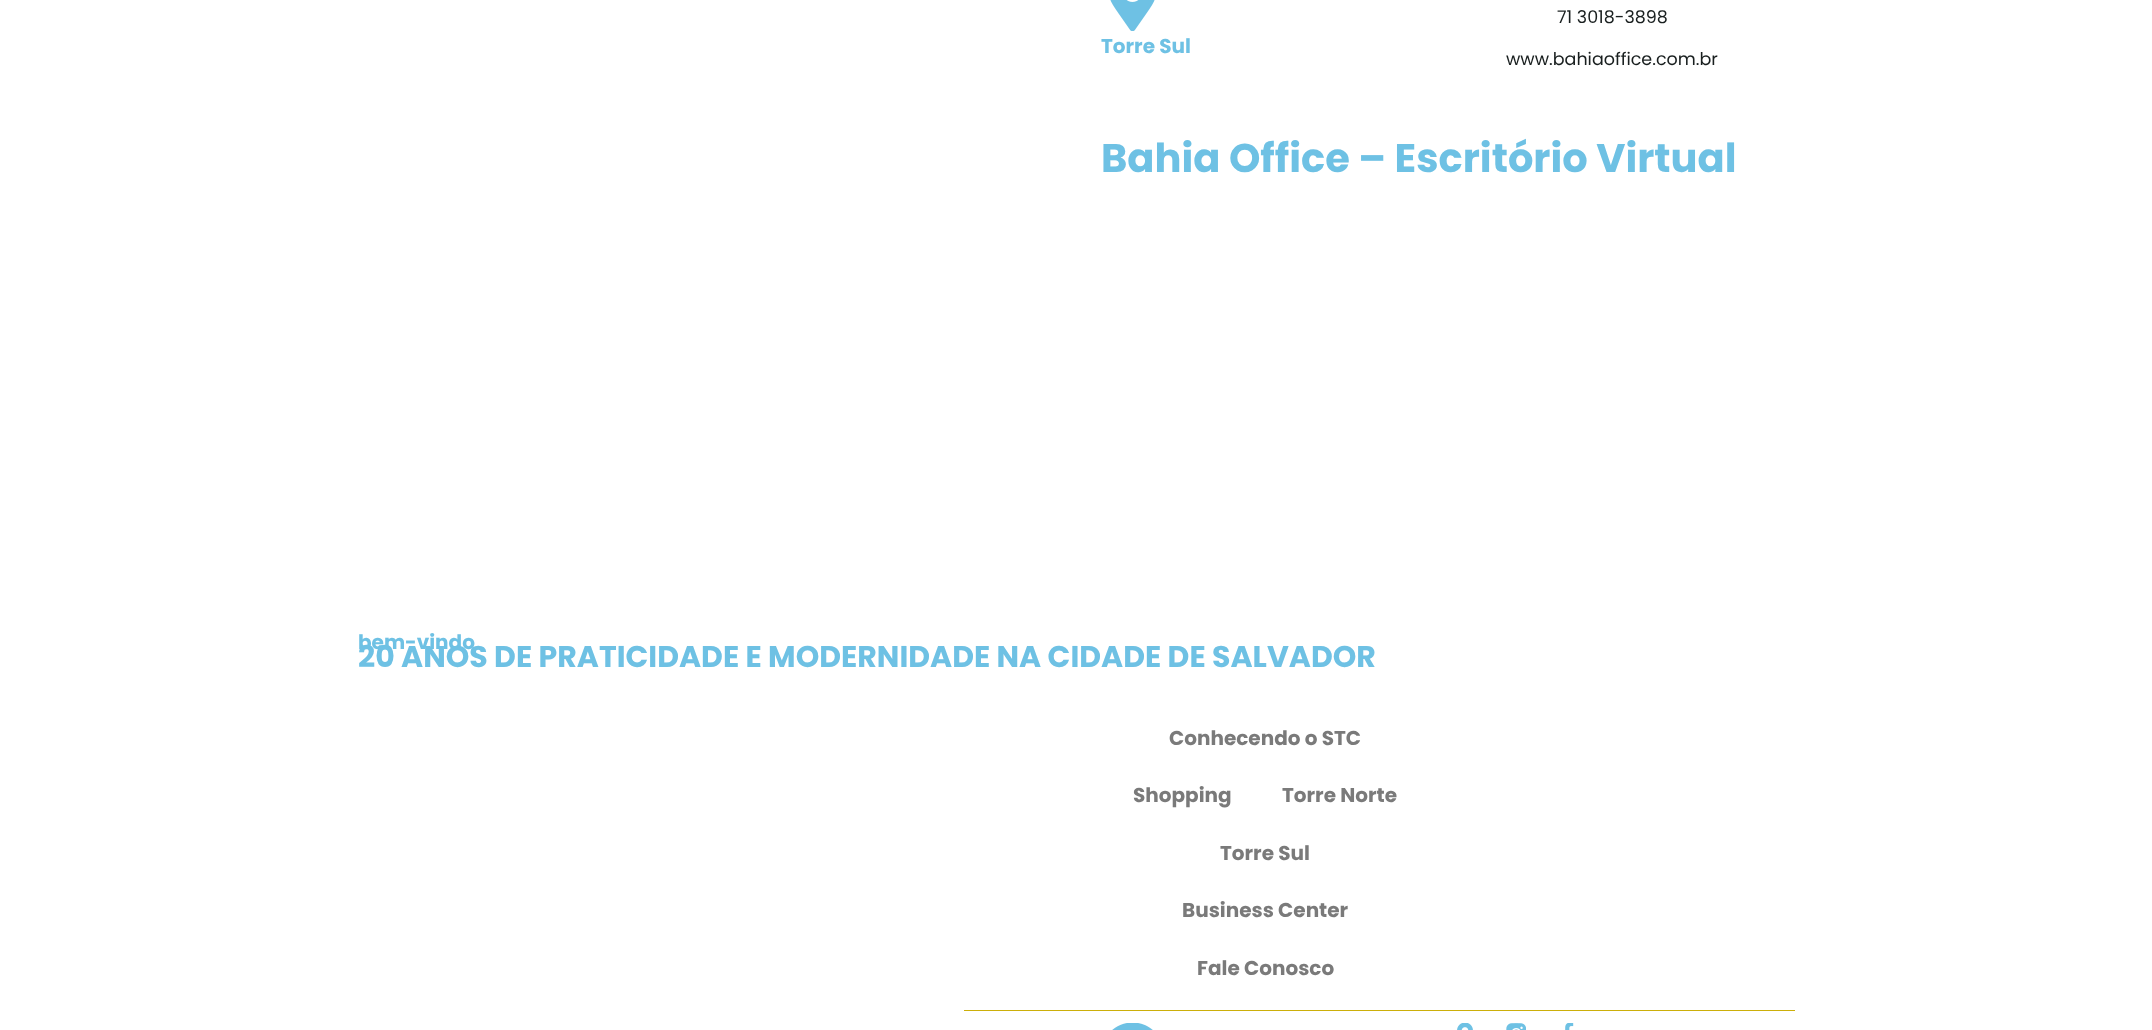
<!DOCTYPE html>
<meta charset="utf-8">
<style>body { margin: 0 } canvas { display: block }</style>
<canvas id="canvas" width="2152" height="1030"></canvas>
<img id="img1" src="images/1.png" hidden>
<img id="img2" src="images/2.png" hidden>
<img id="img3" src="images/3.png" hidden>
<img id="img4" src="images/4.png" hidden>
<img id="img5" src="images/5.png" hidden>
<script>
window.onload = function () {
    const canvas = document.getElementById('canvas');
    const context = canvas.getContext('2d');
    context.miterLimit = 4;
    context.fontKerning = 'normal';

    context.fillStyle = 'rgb(255, 255, 255)';
    context.fillRect(0, 0, 2152, 1030);
    context.drawImage(document.getElementById('img1'), 1110, 0, 45, 31);
    context.fillStyle = 'rgb(204, 175, 9)';
    context.fillRect(964, 1010, 831, 1);
    context.drawImage(document.getElementById('img2'), 1112, 1023, 41, 7);
    context.drawImage(document.getElementById('img3'), 1457, 1023, 16, 7);
    context.drawImage(document.getElementById('img4'), 1506, 1023, 20, 7);
    context.drawImage(document.getElementById('img5'), 1565, 1023, 9, 7);
    context.font = 'bold 20px Poppins';
    context.fillStyle = 'rgb(110, 193, 228)';
    context.fillText('Torre Sul', 1101, 53);
    context.font = '17.5px Poppins';
    context.fillStyle = 'rgb(25, 31, 31)';
    context.fillText('71 3018-3898', 1557, 23);
    context.fillText('www.bahiaoffice.com.br', 1506, 65);
    context.font = 'bold 40px Poppins';
    context.fillStyle = 'rgb(110, 193, 228)';
    context.fillText('Bahia Office – Escritório Virtual', 1101, 172);
    context.font = 'bold 20px Poppins';
    context.fillText('bem-vindo', 358, 649);
    context.font = 'bold 30px Poppins';
    context.fillText('20 ANOS DE PRATICIDADE E MODERNIDADE NA CIDADE DE SALVADOR', 358, 667);
    context.font = 'bold 20px Poppins';
    context.fillStyle = 'rgb(122, 122, 122)';
    context.fillText('Conhecendo o STC', 1169, 745);
    context.fillText('Shopping', 1133, 802);
    context.fillText('Torre Norte', 1282, 802);
    context.fillText('Torre Sul', 1220, 860);
    context.fillText('Business Center', 1182, 917);
    context.fillText('Fale Conosco', 1197, 975);
};
</script>
